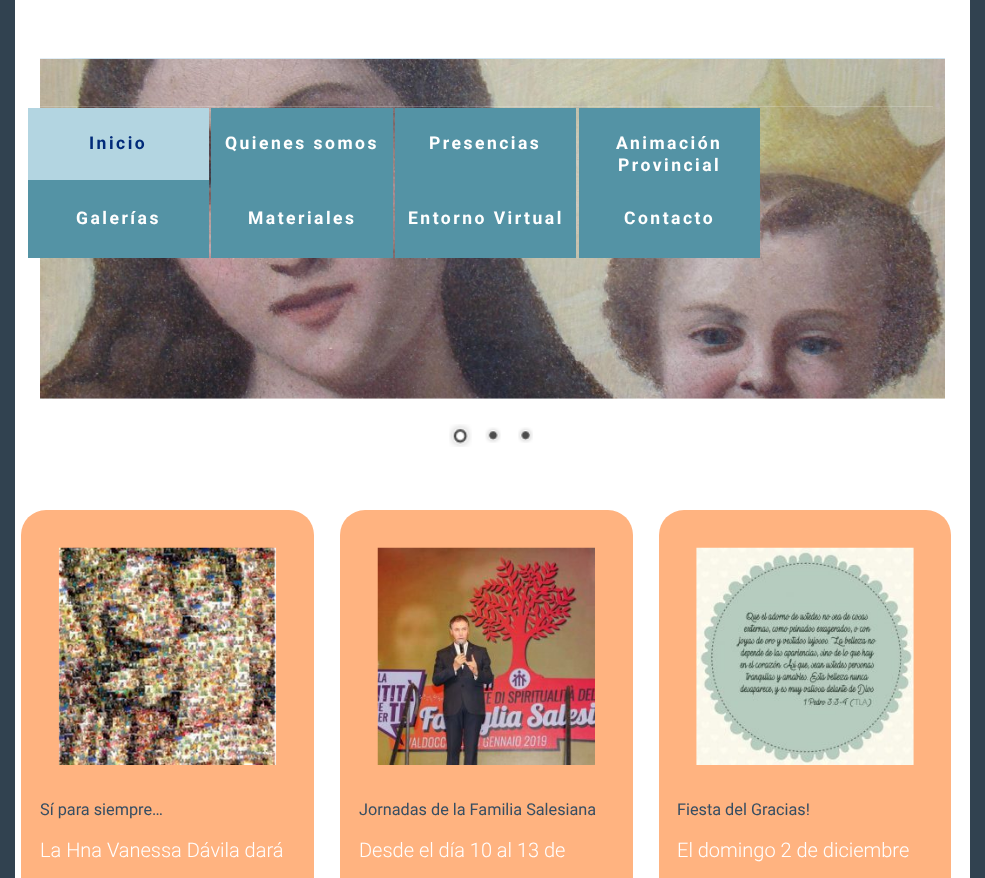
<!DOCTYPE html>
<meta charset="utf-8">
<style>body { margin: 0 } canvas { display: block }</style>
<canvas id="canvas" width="985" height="878"></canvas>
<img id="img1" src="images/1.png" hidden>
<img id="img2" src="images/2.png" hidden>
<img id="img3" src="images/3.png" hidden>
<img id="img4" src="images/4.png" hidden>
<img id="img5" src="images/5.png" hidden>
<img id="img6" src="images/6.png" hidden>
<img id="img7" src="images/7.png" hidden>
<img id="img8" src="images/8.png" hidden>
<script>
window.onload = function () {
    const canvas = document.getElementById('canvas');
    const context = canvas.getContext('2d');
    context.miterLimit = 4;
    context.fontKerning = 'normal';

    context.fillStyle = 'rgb(49, 66, 80)';
    context.fillRect(0, 0, 985, 878);
    context.fillStyle = 'rgb(255, 255, 255)';
    context.fillRect(15, 0, 955, 878);
    context.drawImage(document.getElementById('img1'), 40, 58, 905, 1);
    context.drawImage(document.getElementById('img2'), 40, 58, 905, 341);
    context.fillStyle = 'rgba(255, 255, 255, 0.2)';
    context.fillRect(40, 106, 893, 1);
    context.fillStyle = 'rgb(179, 213, 225)';
    context.fillRect(28, 108, 181, 72);
    context.fillStyle = 'rgb(84, 147, 165)';
    context.fillRect(211, 108, 182, 150);
    context.fillRect(395, 108, 181, 150);
    context.fillRect(579, 108, 181, 150);
    context.fillRect(28, 180, 181, 78);
    context.drawImage(document.getElementById('img3'), 449, 424, 23, 23);
    context.drawImage(document.getElementById('img4'), 485, 427, 16, 16);
    context.drawImage(document.getElementById('img5'), 518, 427, 15, 16);
    context.fillStyle = 'rgb(255, 179, 128)';
    context.beginPath();
    context.roundRect(21, 510, 293, 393, 25);
    context.fill();
    context.drawImage(document.getElementById('img6'), 58, 547, 219, 218);
    context.beginPath();
    context.roundRect(340, 510, 293, 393, 25);
    context.fill();
    context.drawImage(document.getElementById('img7'), 377, 547, 218, 218);
    context.beginPath();
    context.roundRect(659, 510, 292, 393, 25);
    context.fill();
    context.drawImage(document.getElementById('img8'), 696, 547, 218, 218);
    context.letterSpacing = '2.5px';
    context.font = 'bold 17.5px Roboto';
    context.fillStyle = 'rgb(0, 42, 121)';
    context.fillText('Inicio', 89, 149);
    context.fillStyle = 'rgb(255, 255, 255)';
    context.fillText('Quienes somos', 225, 149);
    context.fillText('Presencias', 429, 149);
    context.fillText('Animación', 616, 149);
    context.fillText('Provincial', 618, 171);
    context.fillText('Galerías', 76, 224);
    context.fillText('Materiales', 248, 224);
    context.fillText('Entorno Virtual', 408, 224);
    context.fillText('Contacto', 624, 224);
    context.letterSpacing = '0px';
    context.font = '16.25px Roboto';
    context.fillStyle = 'rgb(55, 78, 98)';
    context.fillText('Sí para siempre…', 40, 815);
    context.font = '300 20px Roboto';
    context.fillStyle = 'rgb(255, 255, 255)';
    context.fillText('La Hna Vanessa Dávila dará', 40, 857);
    context.font = '16.25px Roboto';
    context.fillStyle = 'rgb(55, 78, 98)';
    context.fillText('Jornadas de la Familia Salesiana', 359, 815);
    context.font = '300 20px Roboto';
    context.fillStyle = 'rgb(255, 255, 255)';
    context.fillText('Desde el día 10 al 13 de', 359, 857);
    context.font = '16.25px Roboto';
    context.fillStyle = 'rgb(55, 78, 98)';
    context.fillText('Fiesta del Gracias!', 677, 815);
    context.font = '300 20px Roboto';
    context.fillStyle = 'rgb(255, 255, 255)';
    context.fillText('El domingo 2 de diciembre', 677, 857);
};
</script>
